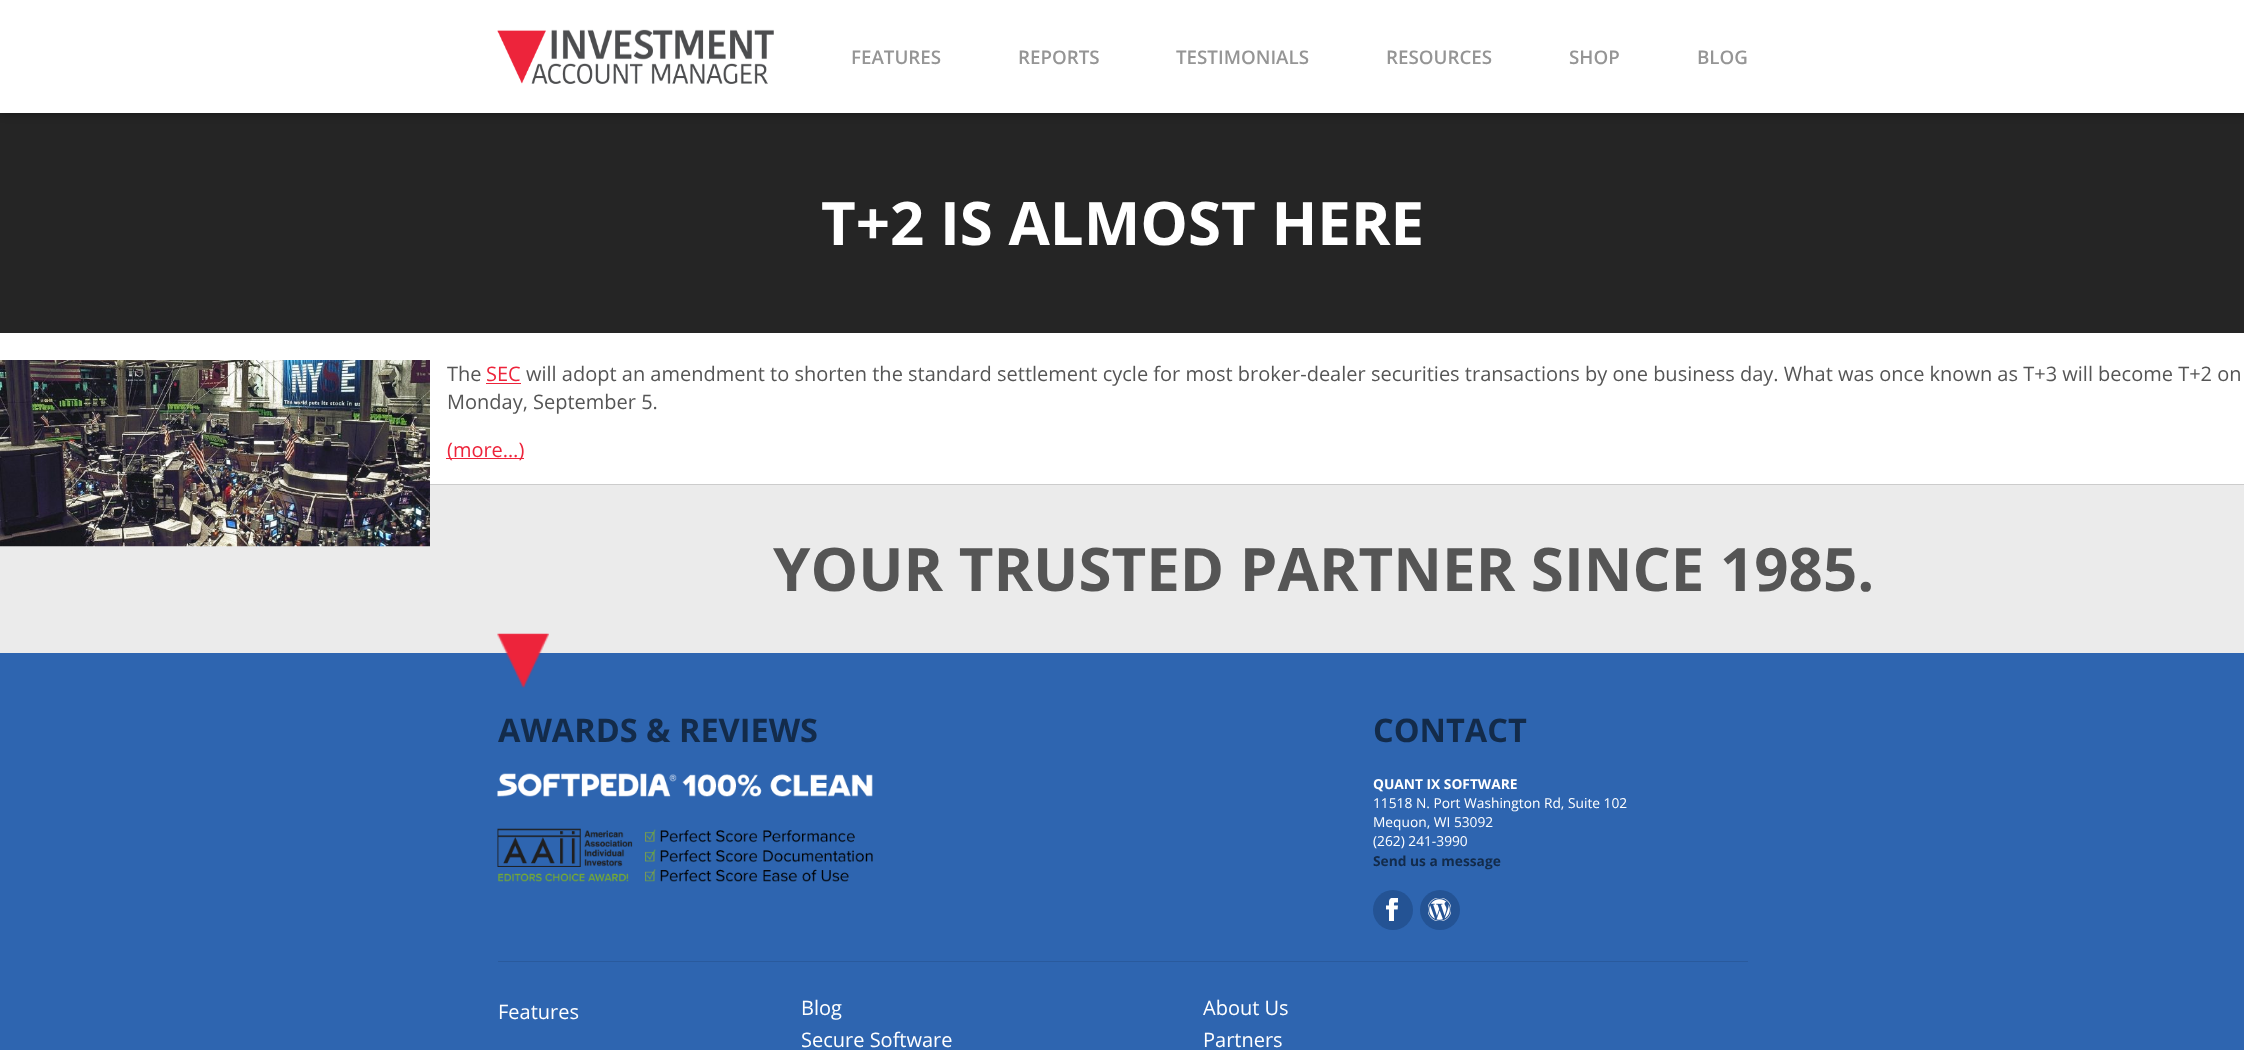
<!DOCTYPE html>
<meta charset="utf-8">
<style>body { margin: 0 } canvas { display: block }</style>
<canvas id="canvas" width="2244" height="1050"></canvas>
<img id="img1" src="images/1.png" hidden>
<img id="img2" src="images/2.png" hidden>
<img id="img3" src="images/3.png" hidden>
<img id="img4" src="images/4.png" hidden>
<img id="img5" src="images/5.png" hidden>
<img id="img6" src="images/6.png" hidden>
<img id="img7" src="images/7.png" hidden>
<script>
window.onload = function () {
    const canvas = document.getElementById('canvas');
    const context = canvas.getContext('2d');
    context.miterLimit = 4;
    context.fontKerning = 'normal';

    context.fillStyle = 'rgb(255, 255, 255)';
    context.fillRect(0, 0, 2244, 1050);
    context.fillStyle = 'rgb(37, 37, 37)';
    context.fillRect(0, 113, 2244, 220);
    context.fillStyle = 'rgba(0, 0, 0, 0.8)';
    context.filter = 'blur(6px)';
    context.beginPath();
    context.rect(0, -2, 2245, 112);
    context.fill();
    context.filter = 'none';
    context.fillStyle = 'rgb(255, 255, 255)';
    context.fillRect(0, 0, 2244, 113);
    context.drawImage(document.getElementById('img1'), 497, 29, 277, 55);
    context.fillStyle = 'rgb(235, 235, 235)';
    context.fillRect(0, 485, 2244, 168);
    context.drawImage(document.getElementById('img2'), 0, 360, 430, 187);
    context.fillStyle = 'rgb(237, 36, 59)';
    context.fillRect(486, 383, 35, 1);
    context.fillRect(446, 458, 78, 1);
    context.fillStyle = 'rgb(204, 204, 204)';
    context.fillRect(430, 484, 1814, 1);
    context.fillStyle = 'rgb(46, 101, 176)';
    context.fillRect(0, 653, 2244, 397);
    context.drawImage(document.getElementById('img3'), 497, 633, 52, 55);
    context.drawImage(document.getElementById('img4'), 497, 773, 376, 24);
    context.drawImage(document.getElementById('img5'), 497, 828, 376, 54);
    context.fillStyle = 'rgb(36, 83, 148)';
    context.beginPath();
    context.arc(1393, 910, 20, 0, 2 * Math.PI);
    context.fill();
    context.drawImage(document.getElementById('img6'), 1386, 898, 12, 23);
    context.beginPath();
    context.arc(1440, 910, 20, 0, 2 * Math.PI);
    context.fill();
    context.drawImage(document.getElementById('img7'), 1428, 898, 23, 23);
    context.fillStyle = 'rgb(41, 90, 157)';
    context.fillRect(498, 961, 1250, 1);
    context.font = '600 18.75px Open Sans';
    context.fillStyle = 'rgb(149, 149, 149)';
    context.fillText('FEATURES', 851, 64);
    context.fillText('REPORTS', 1018, 64);
    context.fillText('TESTIMONIALS', 1176, 64);
    context.fillText('RESOURCES', 1386, 64);
    context.fillText('SHOP', 1569, 64);
    context.fillText('BLOG', 1697, 64);
    context.font = 'bold 60px Open Sans';
    context.fillStyle = 'rgb(255, 255, 255)';
    context.fillText('T+2 IS ALMOST HERE', 821, 245);
    context.font = '20px Open Sans';
    context.fillStyle = 'rgb(85, 85, 85)';
    context.fillText('The', 447, 381);
    context.fillStyle = 'rgb(237, 36, 59)';
    context.fillText('SEC', 486, 381);
    context.fillStyle = 'rgb(85, 85, 85)';
    context.fillText('will adopt an amendment to shorten the standard settlement cycle for most broker-dealer securities transactions by one business day. What was once known as T+3 will become T+2 on', 526, 381);
    context.fillText('Monday, September 5.', 447, 409);
    context.fillStyle = 'rgb(237, 36, 59)';
    context.fillText('(more…)', 447, 457);
    context.font = 'bold 60px Open Sans';
    context.fillStyle = 'rgb(85, 85, 85)';
    context.fillText('YOUR TRUSTED PARTNER SINCE 1985.', 773, 591);
    context.font = 'bold 32.5px Open Sans';
    context.fillStyle = 'rgb(19, 43, 74)';
    context.fillText('AWARDS & REVIEWS', 498, 742);
    context.fillText('CONTACT', 1373, 742);
    context.font = 'bold 13.75px Open Sans';
    context.fillStyle = 'rgb(255, 255, 255)';
    context.fillText('QUANT IX SOFTWARE', 1373, 789);
    context.font = '13.75px Open Sans';
    context.fillText('11518 N. Port Washington Rd, Suite 102', 1373, 808);
    context.fillText('Mequon, WI 53092', 1373, 827);
    context.fillText('(262) 241-3990', 1373, 846);
    context.font = 'bold 13.75px Open Sans';
    context.fillStyle = 'rgb(19, 43, 74)';
    context.fillText('Send us a message', 1373, 866);
    context.font = '20px Open Sans';
    context.fillStyle = 'rgb(255, 255, 255)';
    context.fillText('Features', 498, 1019);
    context.fillText('Blog', 801, 1015);
    context.fillText('Secure Software', 801, 1047);
    context.fillText('About Us', 1203, 1015);
    context.fillText('Partners', 1203, 1047);
};
</script>
